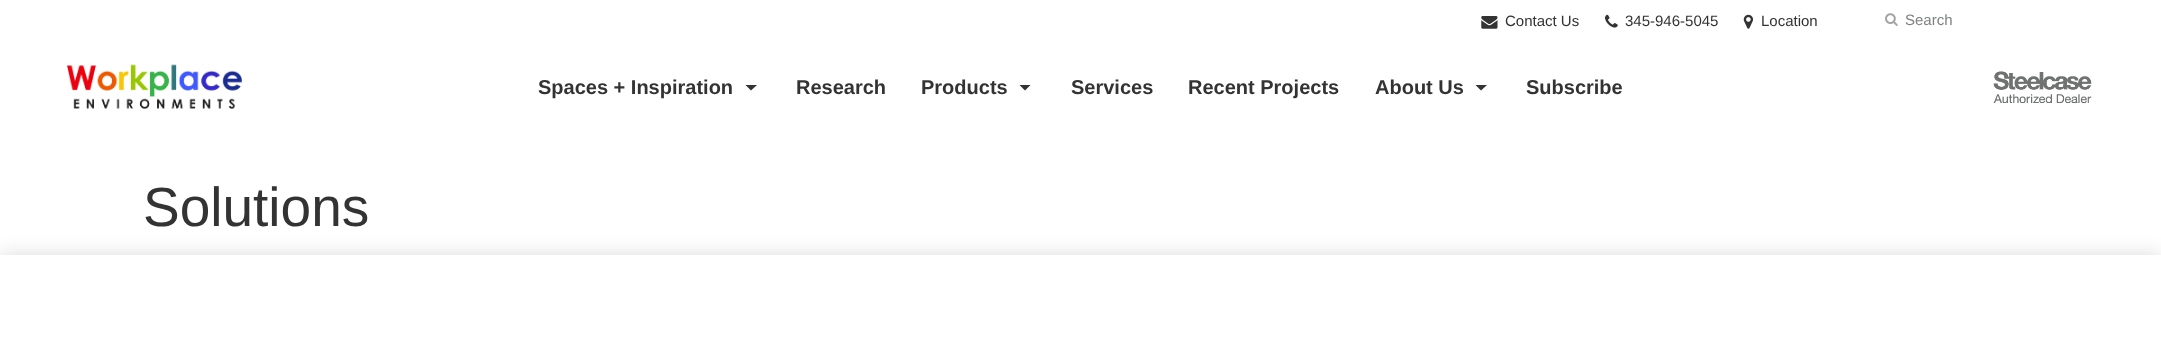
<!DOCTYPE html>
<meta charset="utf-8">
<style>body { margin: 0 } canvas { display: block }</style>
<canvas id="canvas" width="2161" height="354"></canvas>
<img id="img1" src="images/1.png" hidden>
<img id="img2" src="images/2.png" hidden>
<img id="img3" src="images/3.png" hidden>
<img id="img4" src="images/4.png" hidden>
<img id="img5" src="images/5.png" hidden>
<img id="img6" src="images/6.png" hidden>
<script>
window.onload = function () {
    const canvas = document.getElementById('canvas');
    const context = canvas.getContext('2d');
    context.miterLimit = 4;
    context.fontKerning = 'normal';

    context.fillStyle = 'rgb(255, 255, 255)';
    context.fillRect(0, 0, 2161, 354);
    context.drawImage(document.getElementById('img1'), 1481, 16, 17, 13);
    context.drawImage(document.getElementById('img2'), 1605, 14, 13, 14);
    context.drawImage(document.getElementById('img3'), 1743, 14, 10, 15);
    context.drawImage(document.getElementById('img4'), 1885, 13, 13, 13);
    context.drawImage(document.getElementById('img5'), 67, 64, 176, 45);
    context.fillStyle = 'rgb(51, 51, 51)';
    context.beginPath();
    context.moveTo(745.5, 85);
    context.lineTo(751, 90.5);
    context.lineTo(757, 85);
    context.closePath();
    context.fill();
    context.beginPath();
    context.moveTo(1019.5, 85);
    context.lineTo(1025, 90.5);
    context.lineTo(1030.5, 85);
    context.closePath();
    context.fill();
    context.beginPath();
    context.moveTo(1475.5, 85);
    context.lineTo(1481, 90.5);
    context.lineTo(1487, 85);
    context.closePath();
    context.fill();
    context.drawImage(document.getElementById('img6'), 1993, 71, 99, 32);
    context.fillStyle = 'rgba(0, 0, 0, 0.13)';
    context.filter = 'blur(9.5px)';
    context.beginPath();
    context.rect(0, 254, 2161, 100);
    context.fill();
    context.filter = 'none';
    context.fillStyle = 'rgb(255, 255, 255)';
    context.fillRect(0, 255, 2161, 99);
    context.font = '15px Liberation Sans';
    context.fillStyle = 'rgb(51, 51, 51)';
    context.fillText('Contact Us', 1505, 26);
    context.fillText('345-946-5045', 1625, 26);
    context.fillText('Location', 1761, 26);
    context.fillStyle = 'rgb(127, 129, 128)';
    context.fillText('Search', 1905, 25);
    context.font = 'bold 20px Liberation Sans';
    context.fillStyle = 'rgb(51, 51, 51)';
    context.fillText('Spaces + Inspiration', 538, 94);
    context.fillText('Research', 796, 94);
    context.fillText('Products', 921, 94);
    context.fillText('Services', 1071, 94);
    context.fillText('Recent Projects', 1188, 94);
    context.fillText('About Us', 1375, 94);
    context.fillText('Subscribe', 1526, 94);
    context.font = '55px Liberation Sans';
    context.fillText('Solutions', 143, 226);
};
</script>
